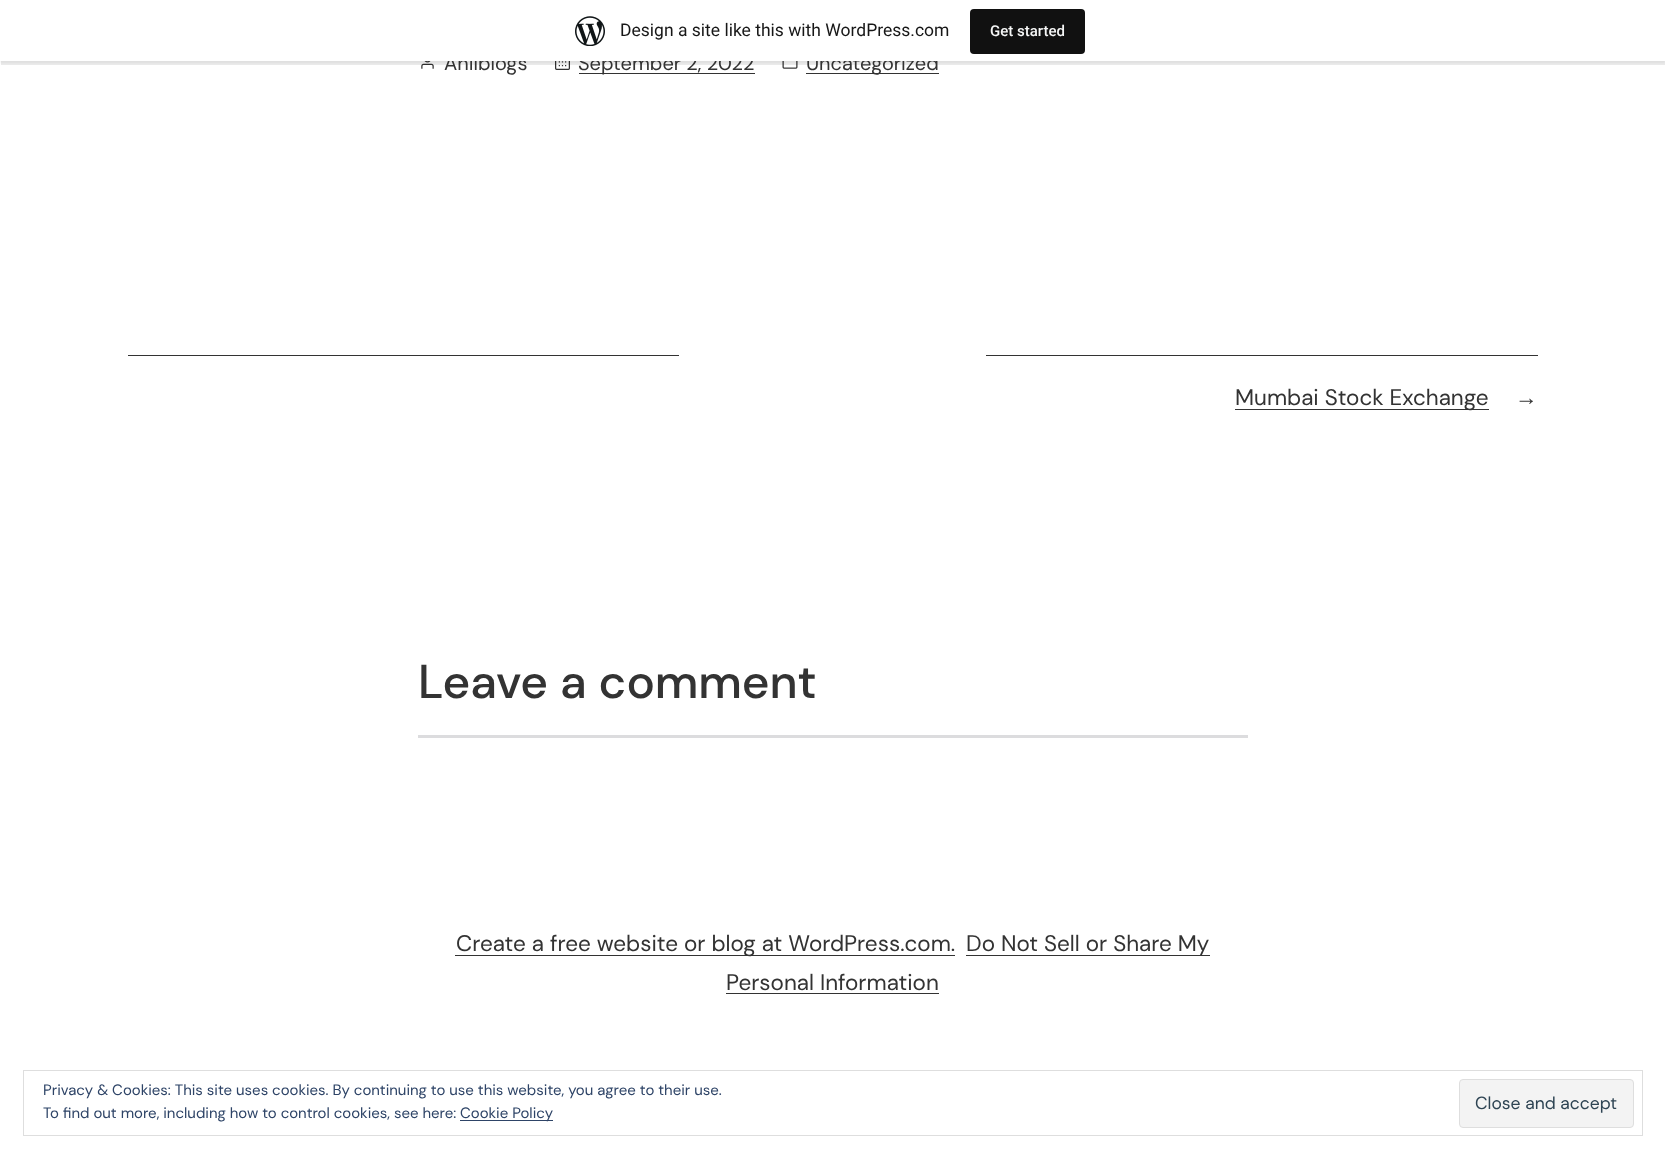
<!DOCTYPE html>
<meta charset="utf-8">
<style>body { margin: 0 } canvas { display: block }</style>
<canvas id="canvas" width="1665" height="1158"></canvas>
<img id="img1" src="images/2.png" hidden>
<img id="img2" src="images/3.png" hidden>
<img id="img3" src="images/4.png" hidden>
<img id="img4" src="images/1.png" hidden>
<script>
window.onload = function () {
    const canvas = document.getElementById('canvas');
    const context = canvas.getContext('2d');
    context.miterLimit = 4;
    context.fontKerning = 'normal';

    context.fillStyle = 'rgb(255, 255, 255)';
    context.fillRect(0, 0, 1665, 1158);
    context.drawImage(document.getElementById('img1'), 421, 61, 13, 8);
    context.drawImage(document.getElementById('img2'), 555, 61, 15, 9);
    context.drawImage(document.getElementById('img3'), 782, 61, 16, 8);
    context.fillStyle = 'rgba(0, 0, 0, 0.05)';
    context.filter = 'blur(1px)';
    context.beginPath();
    context.rect(0, 1, 1665, 62);
    context.fill();
    context.filter = 'none';
    context.fillStyle = 'rgba(0, 0, 0, 0.08)';
    context.beginPath();
    context.moveTo(1, 61);
    context.lineTo(1, 65);
    context.lineTo(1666, 65);
    context.lineTo(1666, 4);
    context.lineTo(1665, 4);
    context.lineTo(1665, 61);
    context.closePath();
    context.fill();
    context.fillStyle = 'rgb(51, 51, 51)';
    context.fillRect(579, 73, 176, 1);
    context.fillRect(806, 73, 133, 1);
    context.fillRect(128, 355, 551, 1);
    context.fillRect(986, 355, 552, 1);
    context.fillRect(1235, 409, 254, 1);
    context.fillStyle = 'rgb(220, 220, 222)';
    context.fillRect(418, 735, 830, 3);
    context.fillStyle = 'rgb(51, 51, 51)';
    context.fillRect(455, 955, 500, 1);
    context.fillRect(966, 955, 244, 1);
    context.fillRect(726, 993, 213, 1);
    context.strokeStyle = 'rgb(222, 222, 222)';
    context.strokeRect(23.5, 1070.5, 1619, 65);
    context.fillStyle = 'rgb(243, 243, 243)';
    context.beginPath();
    context.roundRect(1459.5, 1079.5, 174, 48, 3.5);
    context.fill();
    context.stroke();
    context.fillStyle = 'rgb(46, 68, 103)';
    context.fillRect(460, 1120, 93, 1);
    context.font = '20px DM Sans';
    context.fillStyle = 'rgb(51, 51, 51)';
    context.fillText('Anilblogs', 444, 70);
    context.fillText('September 2, 2022', 578, 70);
    context.fillText('Uncategorized', 806, 70);
    context.fillStyle = 'rgb(255, 255, 255)';
    context.fillRect(0, 0, 1665, 61);
    context.drawImage(document.getElementById('img4'), 575, 16, 30, 30);
    context.font = '17.5px Roboto';
    context.fillStyle = 'rgb(23, 23, 23)';
    context.fillText('Design a site like this with WordPress.com', 620, 36);
    context.fillStyle = 'rgb(17, 17, 17)';
    context.beginPath();
    context.roundRect(970, 9, 115, 45, 4);
    context.fill();
    context.font = '500 15px Roboto';
    context.fillStyle = 'rgb(246, 247, 247)';
    context.fillText('Get started', 990, 36);
    context.font = '22.5px DM Sans';
    context.fillStyle = 'rgb(51, 51, 51)';
    context.fillText('Mumbai Stock Exchange', 1235, 405);
    context.font = '22.5px Liberation Sans';
    context.fillText('→', 1515, 405);
    context.font = '500 47.5px DM Sans';
    context.fillText('Leave a comment', 418, 698);
    context.font = '22.5px DM Sans';
    context.fillText('Create a free website or blog at WordPress.com.', 456, 951);
    context.fillText('Do Not Sell or Share My', 966, 951);
    context.fillText('Personal Information', 726, 990);
    context.font = '15px DM Sans';
    context.fillStyle = 'rgb(46, 68, 103)';
    context.fillText('Privacy & Cookies: This site uses cookies. By continuing to use this website, you agree to their use.', 43, 1095);
    context.font = '17.5px DM Sans';
    context.fillStyle = 'rgb(46, 68, 83)';
    context.fillText('Close and accept', 1475, 1109);
    context.font = '15px DM Sans';
    context.fillStyle = 'rgb(46, 68, 103)';
    context.fillText('To find out more, including how to control cookies, see here:', 43, 1118);
    context.fillText('Cookie Policy', 460, 1118);
};
</script>
